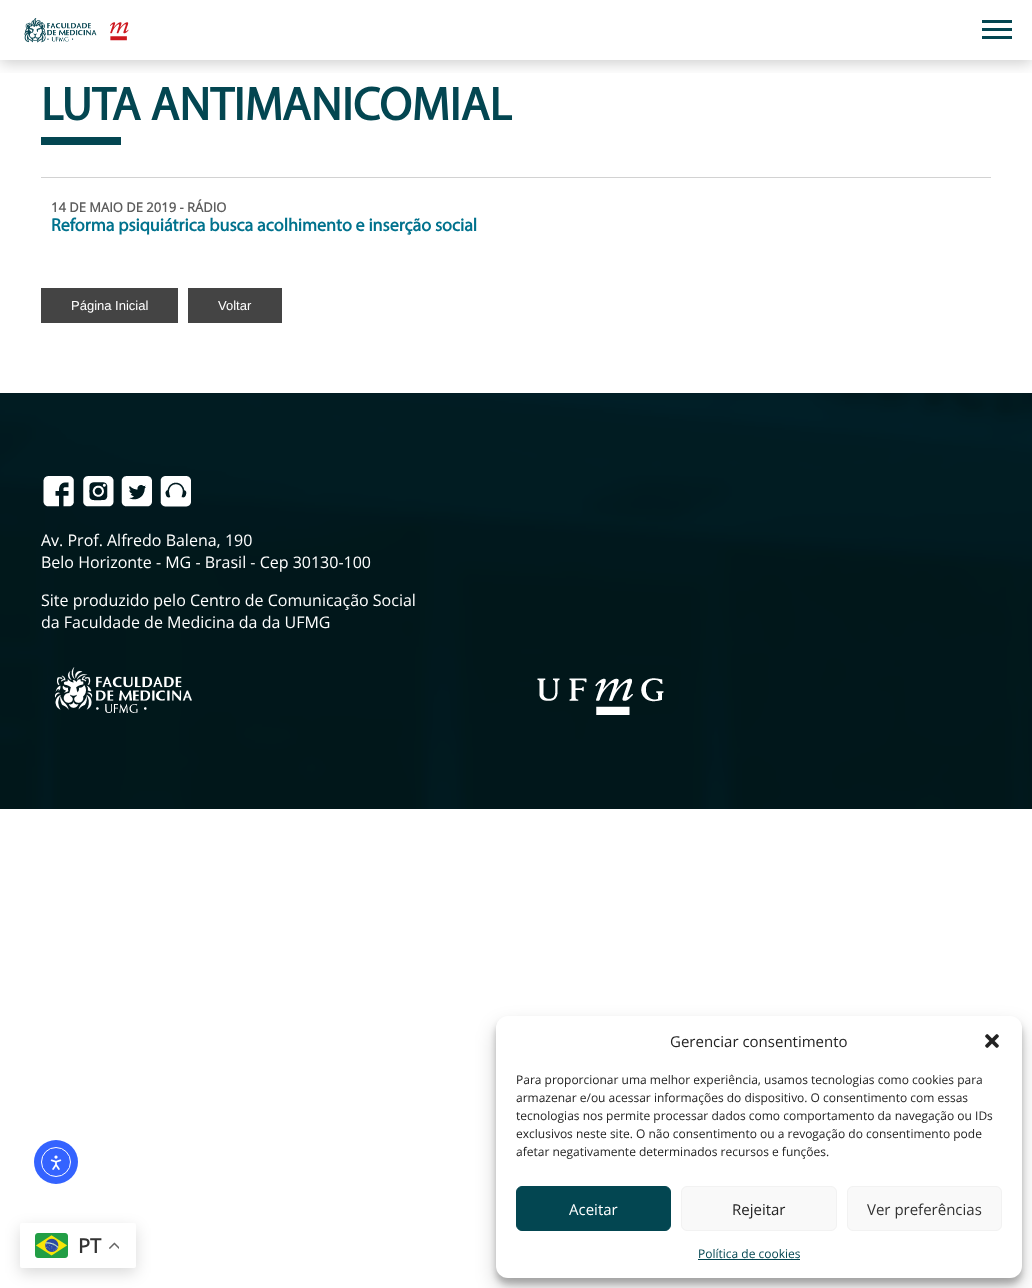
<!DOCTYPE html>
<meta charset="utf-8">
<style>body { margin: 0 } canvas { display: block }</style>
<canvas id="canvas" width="1032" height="1288"></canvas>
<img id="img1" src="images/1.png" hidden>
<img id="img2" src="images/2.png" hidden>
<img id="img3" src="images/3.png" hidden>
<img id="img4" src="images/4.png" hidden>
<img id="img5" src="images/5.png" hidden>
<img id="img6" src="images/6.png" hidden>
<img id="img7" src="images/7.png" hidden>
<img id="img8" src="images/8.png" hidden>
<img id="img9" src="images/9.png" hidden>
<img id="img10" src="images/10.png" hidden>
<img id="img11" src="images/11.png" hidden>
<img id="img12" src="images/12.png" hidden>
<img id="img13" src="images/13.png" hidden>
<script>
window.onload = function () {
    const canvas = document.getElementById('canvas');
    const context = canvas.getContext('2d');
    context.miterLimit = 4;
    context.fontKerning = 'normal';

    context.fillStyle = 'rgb(255, 255, 255)';
    context.fillRect(0, 0, 1032, 1288);
    context.save();
    context.beginPath();
    context.rect(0, 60, 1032, 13);
    context.clip();
    context.fillStyle = 'rgba(0, 0, 0, 0.2)';
    context.filter = 'blur(7.5px)';
    context.beginPath();
    context.rect(0, 3, 1032, 60);
    context.fill();
    context.filter = 'none';
    context.restore();
    context.drawImage(document.getElementById('img1'), 24, 18, 73, 25);
    context.drawImage(document.getElementById('img2'), 110, 22, 19, 19);
    context.fillStyle = 'rgb(3, 70, 81)';
    context.fillRect(982, 20, 30, 3);
    context.fillRect(982, 36, 30, 3);
    context.fillRect(982, 28, 30, 3);
    context.fillRect(41, 137, 80, 8);
    context.fillStyle = 'rgb(210, 210, 210)';
    context.fillRect(41, 177, 950, 1);
    context.fillStyle = 'rgb(68, 68, 68)';
    context.fillRect(41, 288, 137, 35);
    context.fillRect(188, 288, 94, 35);
    context.drawImage(document.getElementById('img3'), 0, 393, 1032, 416);
    context.drawImage(document.getElementById('img4'), 43, 476, 31, 31);
    context.drawImage(document.getElementById('img5'), 83, 476, 31, 31);
    context.drawImage(document.getElementById('img6'), 121, 476, 31, 31);
    context.drawImage(document.getElementById('img7'), 160, 476, 31, 31);
    context.drawImage(document.getElementById('img8'), 55, 667, 137, 46);
    context.drawImage(document.getElementById('img9'), 537, 678, 127, 37);
    context.fillStyle = 'rgba(0, 0, 0, 0.15)';
    context.filter = 'blur(7.5px)';
    context.beginPath();
    context.roundRect(20, 1228, 116, 45, 2);
    context.fill();
    context.filter = 'none';
    context.fillStyle = 'rgb(255, 255, 255)';
    context.beginPath();
    context.roundRect(20, 1223, 116, 45, 2);
    context.fill();
    context.drawImage(document.getElementById('img10'), 35, 1233, 33, 25);
    context.drawImage(document.getElementById('img11'), 109, 1242, 10, 7);
    context.fillStyle = 'rgba(0, 0, 0, 0.23)';
    context.filter = 'blur(3px)';
    context.beginPath();
    context.roundRect(496, 1022, 526, 262, 12);
    context.fill();
    context.filter = 'none';
    context.fillStyle = 'rgba(0, 0, 0, 0.19)';
    context.filter = 'blur(10px)';
    context.beginPath();
    context.roundRect(496, 1026, 526, 262, 12);
    context.fill();
    context.filter = 'none';
    context.fillStyle = 'rgb(255, 255, 255)';
    context.beginPath();
    context.roundRect(496, 1016, 526, 262, 12);
    context.fill();
    context.drawImage(document.getElementById('img12'), 985, 1034, 14, 14);
    context.fillStyle = 'rgb(3, 70, 81)';
    context.beginPath();
    context.roundRect(516.5, 1186.5, 154, 44, 5.5);
    context.fill();
    context.strokeStyle = 'rgb(3, 70, 81)';
    context.stroke();
    context.fillStyle = 'rgb(249, 249, 249)';
    context.beginPath();
    context.roundRect(681.5, 1186.5, 155, 44, 5.5);
    context.fill();
    context.strokeStyle = 'rgb(242, 242, 242)';
    context.stroke();
    context.beginPath();
    context.roundRect(847.5, 1186.5, 154, 44, 5.5);
    context.fill();
    context.stroke();
    context.fillStyle = 'rgb(3, 70, 81)';
    context.fillRect(698, 1259, 102, 1);
    context.fillStyle = 'rgb(52, 99, 255)';
    context.beginPath();
    context.arc(56, 1162, 22, 0, 2 * Math.PI);
    context.fill();
    context.beginPath();
    context.arc(56, 1162, 14.5, 0, 2 * Math.PI);
    context.strokeStyle = 'rgb(255, 255, 255)';
    context.stroke();
    context.drawImage(document.getElementById('img13'), 50, 1155, 12, 15);
    context.font = 'bold 47px Myriad';
    context.fillStyle = 'rgb(3, 70, 81)';
    context.fillText('LUTA ANTIMANICOMIAL', 41, 120);
    context.font = 'bold 13px Open Sans';
    context.fillStyle = 'rgb(93, 93, 93)';
    context.fillText('14 DE MAIO DE 2019 - RÁDIO', 51, 212);
    context.font = 'bold 18px Myriad';
    context.fillStyle = 'rgb(0, 114, 141)';
    context.fillText('Reforma psiquiátrica busca acolhimento e inserção social', 51, 231);
    context.font = '13px Liberation Sans';
    context.fillStyle = 'rgb(255, 255, 255)';
    context.fillText('Página Inicial', 71, 310);
    context.fillText('Voltar', 218, 310);
    context.font = '16px Open Sans';
    context.fillText('Av. Prof. Alfredo Balena, 190', 41, 546);
    context.fillText('Belo Horizonte - MG - Brasil - Cep 30130-100', 41, 568);
    context.fillText('Site produzido pelo Centro de Comunicação Social', 41, 606);
    context.fillText('da Faculdade de Medicina da da UFMG', 41, 628);
    context.font = 'bold 20px Open Sans';
    context.fillStyle = 'rgb(51, 51, 51)';
    context.fillText('PT', 78, 1253);
    context.font = '15px Open Sans';
    context.fillStyle = 'rgb(34, 34, 34)';
    context.fillText('Gerenciar consentimento', 670, 1047);
    context.font = '12px Open Sans';
    context.fillText('Para proporcionar uma melhor experiência, usamos tecnologias como cookies para', 516, 1084);
    context.fillText('armazenar e/ou acessar informações do dispositivo. O consentimento com essas', 516, 1102);
    context.fillText('tecnologias nos permite processar dados como comportamento da navegação ou IDs', 516, 1120);
    context.fillText('exclusivos neste site. O não consentimento ou a revogação do consentimento pode', 516, 1138);
    context.fillText('afetar negativamente determinados recursos e funções.', 516, 1156);
    context.font = '15px Open Sans';
    context.fillStyle = 'rgb(255, 255, 255)';
    context.fillText('Aceitar', 569, 1215);
    context.fillStyle = 'rgb(34, 34, 34)';
    context.fillText('Rejeitar', 732, 1215);
    context.fillStyle = 'rgb(51, 51, 51)';
    context.fillText('Ver preferências', 867, 1215);
    context.font = '12px Open Sans';
    context.fillStyle = 'rgb(3, 70, 81)';
    context.fillText('Política de cookies', 698, 1258);
};
</script>
